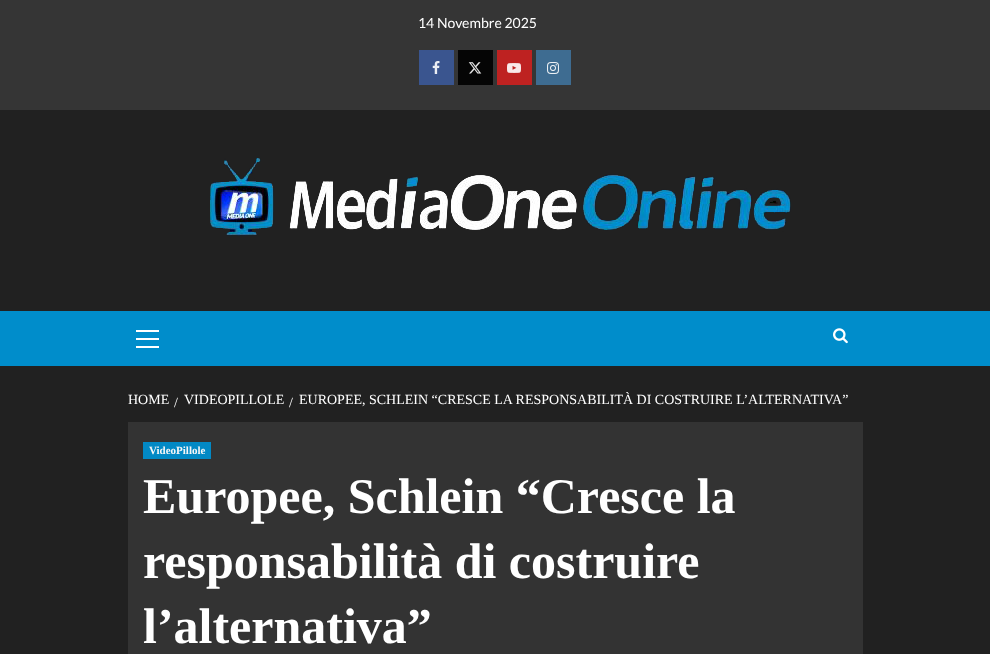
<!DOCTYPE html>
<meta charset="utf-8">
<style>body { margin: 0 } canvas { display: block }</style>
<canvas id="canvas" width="990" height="654"></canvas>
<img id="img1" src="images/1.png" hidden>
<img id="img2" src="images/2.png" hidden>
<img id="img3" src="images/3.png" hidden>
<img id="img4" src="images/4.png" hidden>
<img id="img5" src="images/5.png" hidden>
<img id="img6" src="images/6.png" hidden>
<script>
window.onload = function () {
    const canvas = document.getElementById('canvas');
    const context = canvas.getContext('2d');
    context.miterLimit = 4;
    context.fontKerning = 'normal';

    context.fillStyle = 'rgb(33, 33, 33)';
    context.fillRect(0, 0, 990, 654);
    context.fillStyle = 'rgb(53, 53, 53)';
    context.fillRect(0, 0, 990, 110);
    context.fillStyle = 'rgb(58, 85, 143)';
    context.fillRect(419, 50, 35, 35);
    context.drawImage(document.getElementById('img1'), 432, 61, 8, 13);
    context.fillStyle = 'rgb(5, 5, 5)';
    context.fillRect(458, 50, 35, 35);
    context.drawImage(document.getElementById('img2'), 468, 62, 14, 12);
    context.fillStyle = 'rgb(190, 34, 33)';
    context.fillRect(497, 50, 35, 35);
    context.drawImage(document.getElementById('img3'), 507, 63, 14, 10);
    context.fillStyle = 'rgb(62, 108, 145)';
    context.fillRect(536, 50, 35, 35);
    context.drawImage(document.getElementById('img4'), 547, 62, 12, 12);
    context.drawImage(document.getElementById('img5'), 210, 158, 581, 78);
    context.fillStyle = 'rgb(0, 141, 203)';
    context.fillRect(0, 311, 990, 55);
    context.fillStyle = 'rgb(255, 255, 255)';
    context.fillRect(136, 338, 23, 2);
    context.fillRect(136, 330, 23, 2);
    context.fillRect(136, 346, 23, 2);
    context.drawImage(document.getElementById('img6'), 833, 328, 15, 16);
    context.fillStyle = 'rgb(51, 51, 51)';
    context.fillRect(128, 422, 735, 232);
    context.fillStyle = 'rgb(2, 137, 197)';
    context.fillRect(143, 442, 68, 17);
    context.font = '14px Lato';
    context.fillStyle = 'rgb(255, 255, 255)';
    context.fillText('14 Novembre 2025', 418, 28);
    context.font = '14px Liberation Serif';
    context.fillText('HOME', 128, 404);
    context.fillText('/', 174, 407);
    context.fillText('VIDEOPILLOLE', 184, 404);
    context.fillText('/', 289, 407);
    context.fillText('EUROPEE, SCHLEIN “CRESCE LA RESPONSABILITÀ DI COSTRUIRE L’ALTERNATIVA”', 299, 404);
    context.font = 'bold 11px Liberation Serif';
    context.fillStyle = 'rgb(247, 247, 247)';
    context.fillText('VideoPillole', 149, 454);
    context.font = 'bold 50px Liberation Serif';
    context.fillStyle = 'rgb(255, 255, 255)';
    context.fillText('Europee, Schlein “Cresce la', 143, 513);
    context.fillText('responsabilità di costruire', 143, 578);
    context.fillText('l’alternativa”', 143, 643);
};
</script>
